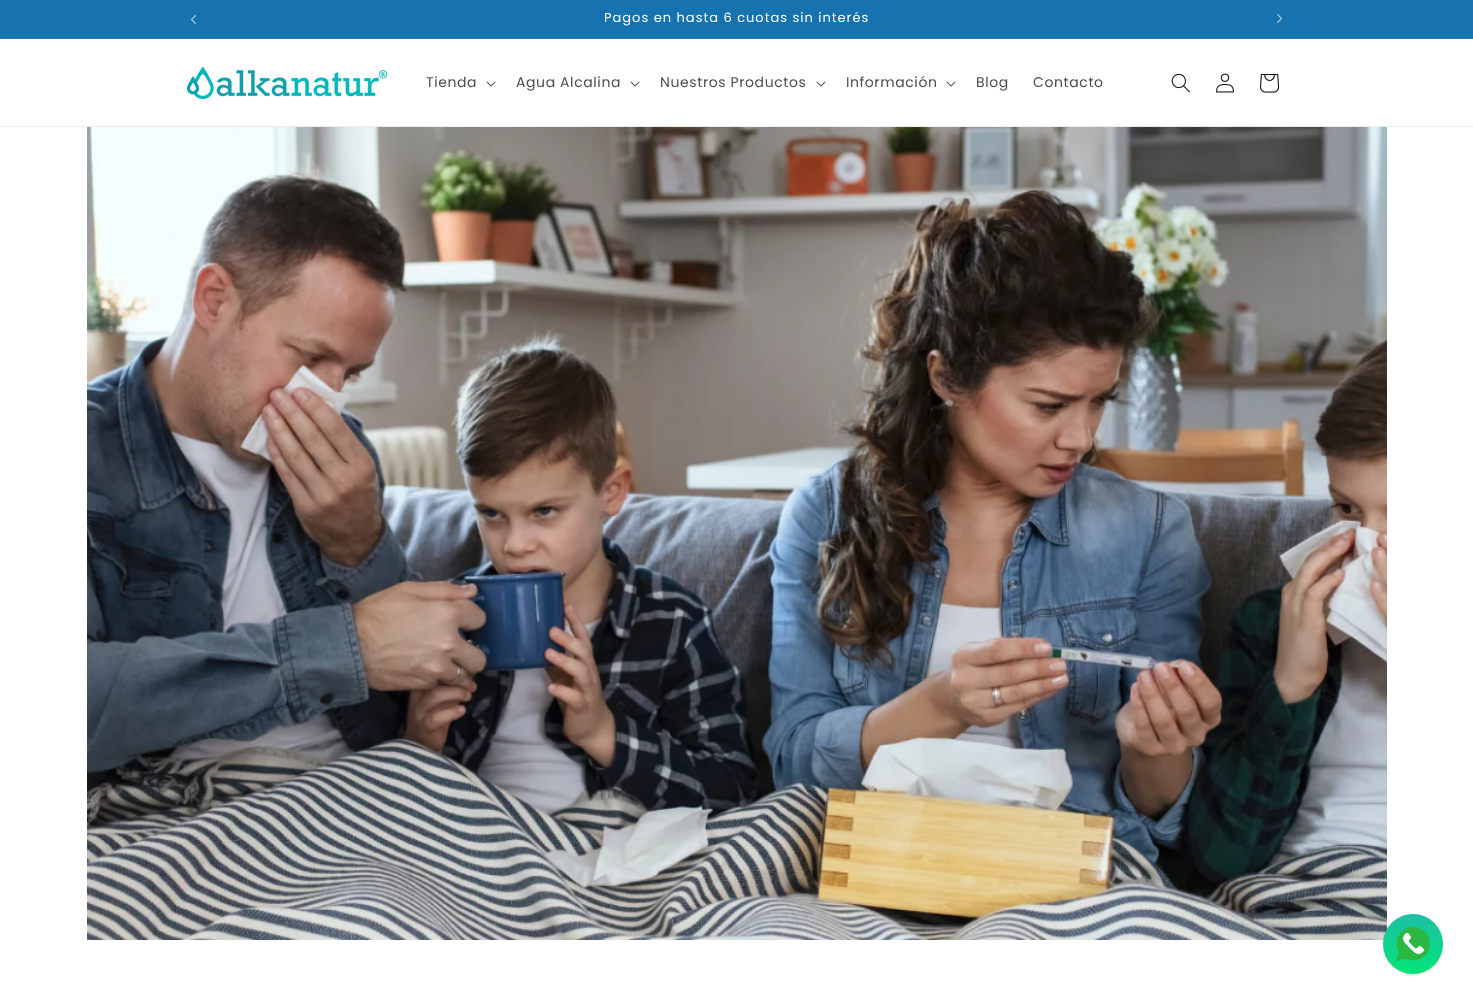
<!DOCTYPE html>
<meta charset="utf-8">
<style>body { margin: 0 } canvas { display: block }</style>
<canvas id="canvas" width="1473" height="1004"></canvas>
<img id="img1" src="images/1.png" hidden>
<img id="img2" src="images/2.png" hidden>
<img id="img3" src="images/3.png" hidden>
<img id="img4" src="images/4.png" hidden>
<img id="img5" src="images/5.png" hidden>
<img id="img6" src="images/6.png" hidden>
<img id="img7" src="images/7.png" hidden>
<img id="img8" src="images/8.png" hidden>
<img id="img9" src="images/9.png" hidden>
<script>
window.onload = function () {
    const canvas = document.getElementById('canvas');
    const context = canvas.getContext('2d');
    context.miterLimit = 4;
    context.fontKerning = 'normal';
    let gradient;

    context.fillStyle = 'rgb(255, 255, 255)';
    context.fillRect(0, 0, 1473, 1004);
    context.fillStyle = 'rgb(23, 115, 176)';
    context.fillRect(0, 0, 1473, 38);
    context.fillStyle = 'rgb(42, 126, 182)';
    context.fillRect(0, 38, 1473, 1);
    context.drawImage(document.getElementById('img1'), 191, 15, 5, 9);
    context.drawImage(document.getElementById('img2'), 1277, 14, 5, 9);
    context.fillStyle = 'rgb(236, 236, 236)';
    context.fillRect(0, 126, 1473, 1);
    context.drawImage(document.getElementById('img3'), 187, 67, 200, 32);
    context.drawImage(document.getElementById('img4'), 486, 81, 10, 6);
    context.drawImage(document.getElementById('img4'), 630, 81, 10, 6);
    context.drawImage(document.getElementById('img4'), 816, 81, 10, 6);
    context.drawImage(document.getElementById('img4'), 946, 81, 10, 6);
    context.drawImage(document.getElementById('img5'), 1171, 73, 19, 20);
    context.drawImage(document.getElementById('img6'), 1216, 73, 18, 20);
    context.drawImage(document.getElementById('img7'), 1260, 74, 20, 19);
    context.drawImage(document.getElementById('img8'), 87, 127, 1300, 813);
    context.fillStyle = 'rgba(0, 0, 0, 0.15)';
    context.filter = 'blur(1px)';
    context.beginPath();
    context.roundRect(1383, 915, 60, 60, 30);
    context.fill();
    context.filter = 'none';
    gradient = context.createLinearGradient(1413, 914, 1413, 974);
    gradient.addColorStop(0, 'rgb(30, 190, 165)');
    gradient.addColorStop(1, 'rgb(1, 230, 119)');
    context.fillStyle = gradient;
    context.beginPath();
    context.arc(1413, 944, 30, 0, 2 * Math.PI);
    context.fill();
    context.drawImage(document.getElementById('img9'), 1396, 927, 34, 34);
    context.letterSpacing = '1px';
    context.font = '13px Poppins';
    context.fillStyle = 'rgb(255, 255, 255)';
    context.fillText('Pagos en hasta 6 cuotas sin interés', 604, 22);
    context.letterSpacing = '0.6px';
    context.font = '14px Poppins';
    context.fillStyle = 'rgb(77, 77, 77)';
    context.fillText('Tienda', 426, 87);
    context.fillText('Agua Alcalina', 516, 87);
    context.fillText('Nuestros Productos', 660, 87);
    context.fillText('Información', 846, 87);
    context.fillText('Blog', 976, 87);
    context.fillText('Contacto', 1033, 87);
};
</script>
